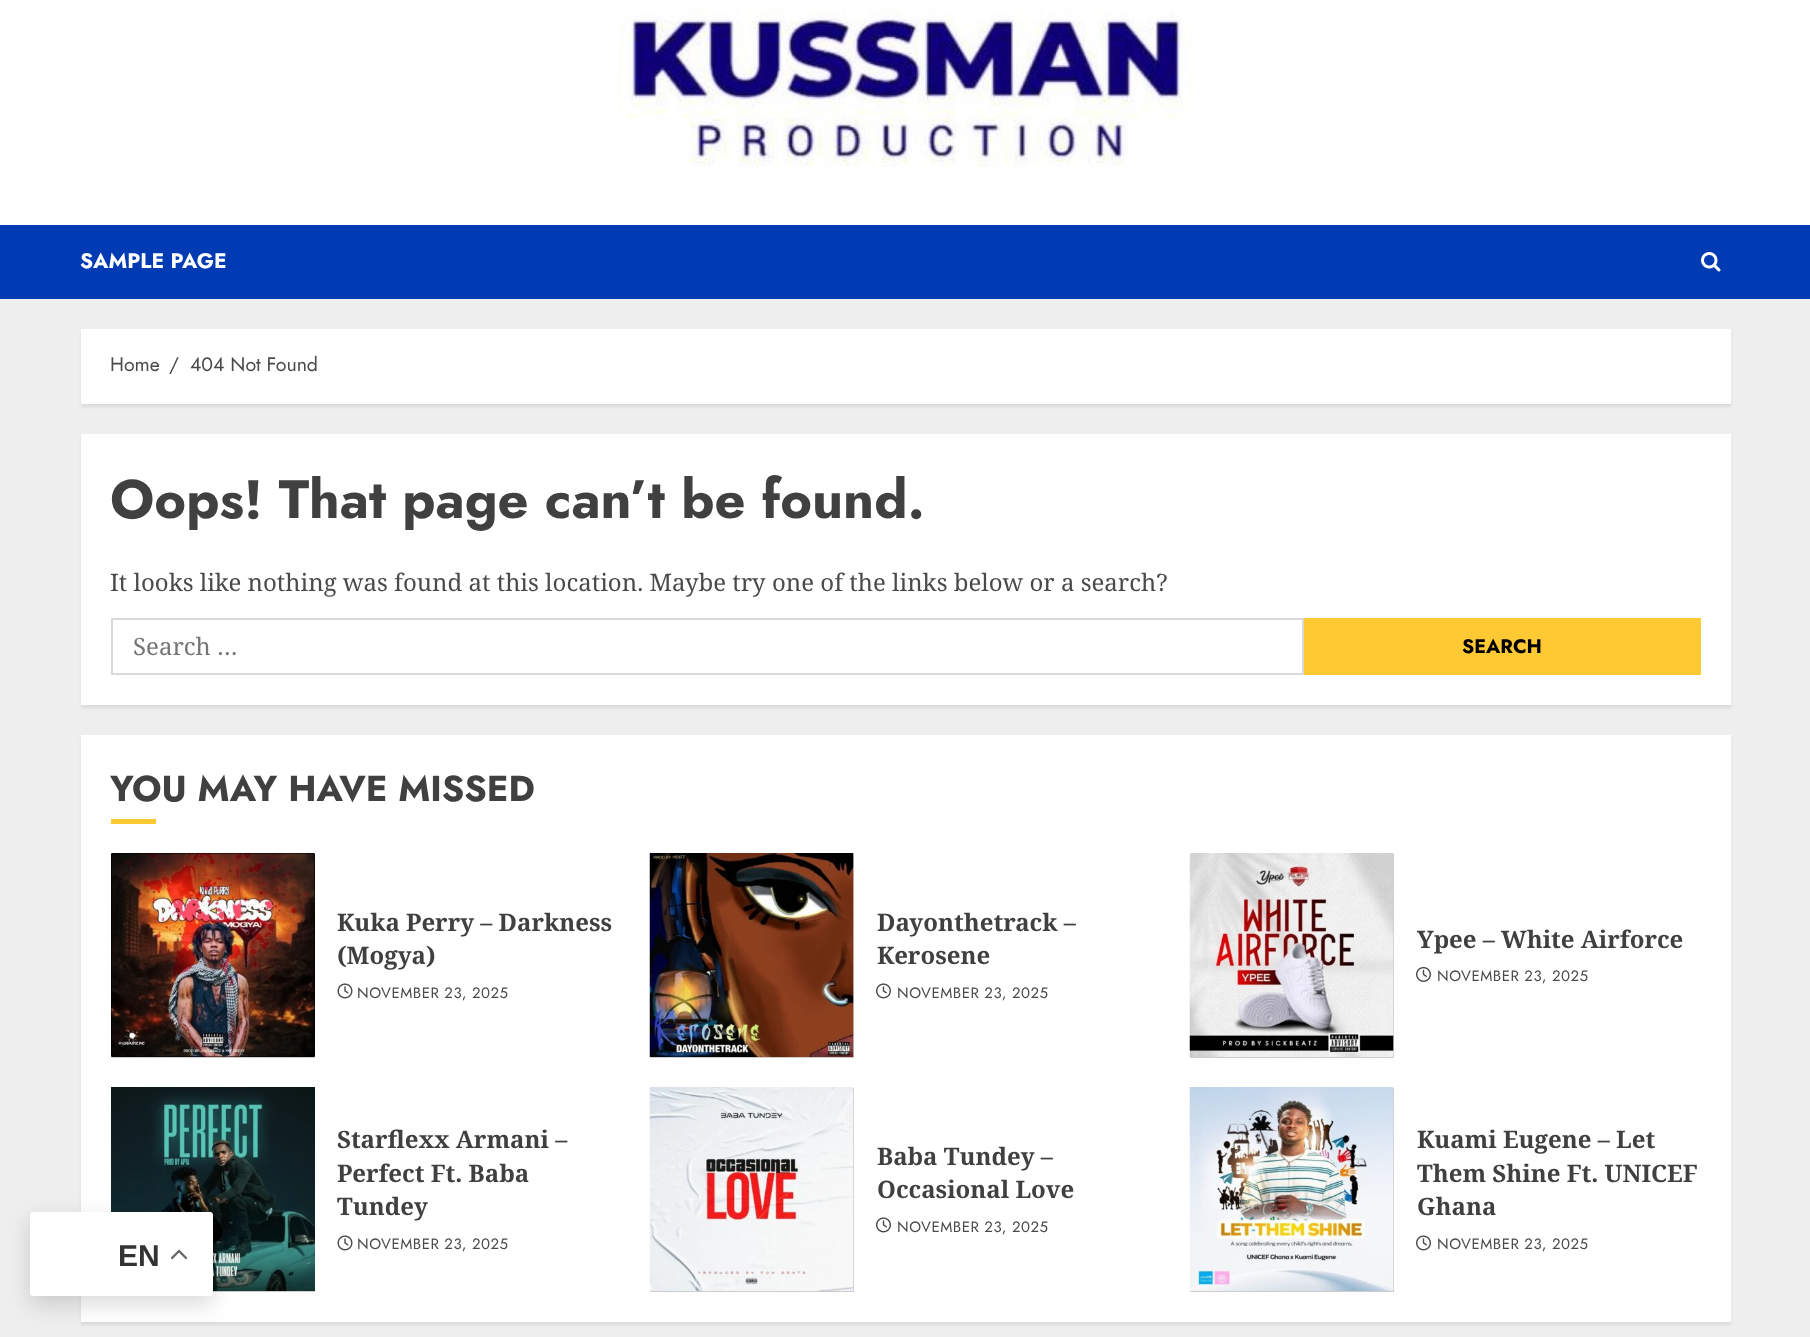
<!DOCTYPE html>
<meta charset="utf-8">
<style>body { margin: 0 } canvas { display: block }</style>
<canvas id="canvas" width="1810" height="1337"></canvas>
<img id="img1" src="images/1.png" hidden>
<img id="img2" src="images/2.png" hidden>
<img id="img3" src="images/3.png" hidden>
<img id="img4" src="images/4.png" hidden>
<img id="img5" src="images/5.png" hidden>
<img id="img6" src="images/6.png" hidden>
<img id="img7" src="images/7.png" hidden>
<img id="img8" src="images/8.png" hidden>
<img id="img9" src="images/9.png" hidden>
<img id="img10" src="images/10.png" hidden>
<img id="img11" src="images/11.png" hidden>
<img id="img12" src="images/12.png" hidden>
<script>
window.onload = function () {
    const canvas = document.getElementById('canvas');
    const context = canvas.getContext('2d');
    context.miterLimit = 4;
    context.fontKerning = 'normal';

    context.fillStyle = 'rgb(238, 238, 238)';
    context.fillRect(0, 0, 1810, 1337);
    context.fillStyle = 'rgb(255, 255, 255)';
    context.fillRect(0, 0, 1810, 225);
    context.drawImage(document.getElementById('img1'), 618, 9, 576, 158);
    context.fillStyle = 'rgb(0, 59, 179)';
    context.fillRect(0, 225, 1810, 74);
    context.drawImage(document.getElementById('img2'), 1701, 252, 20, 20);
    context.fillStyle = 'rgba(0, 0, 0, 0.08)';
    context.filter = 'blur(1.5px)';
    context.beginPath();
    context.rect(81, 332, 1650, 75);
    context.fill();
    context.filter = 'none';
    context.fillStyle = 'rgb(255, 255, 255)';
    context.fillRect(81, 329, 1650, 75);
    context.fillStyle = 'rgba(0, 0, 0, 0.08)';
    context.filter = 'blur(1.5px)';
    context.beginPath();
    context.rect(81, 437, 1650, 271);
    context.fill();
    context.filter = 'none';
    context.fillStyle = 'rgb(255, 255, 255)';
    context.fillRect(81, 434, 1650, 271);
    context.strokeStyle = 'rgb(217, 217, 217)';
    context.lineWidth = 2;
    context.strokeRect(112, 619, 1191, 55);
    context.fillStyle = 'rgb(255, 201, 52)';
    context.fillRect(1304, 618, 397, 57);
    context.fillStyle = 'rgba(0, 0, 0, 0.08)';
    context.filter = 'blur(1.5px)';
    context.beginPath();
    context.rect(81, 738, 1650, 587);
    context.fill();
    context.filter = 'none';
    context.fillStyle = 'rgb(255, 255, 255)';
    context.fillRect(81, 735, 1650, 587);
    context.fillStyle = 'rgb(255, 201, 52)';
    context.fillRect(111, 819, 45, 5);
    context.fillStyle = 'rgb(204, 204, 204)';
    context.fillRect(111, 1057, 204, 1);
    context.drawImage(document.getElementById('img3'), 111, 853, 204, 204);
    context.drawImage(document.getElementById('img4'), 337, 983, 16, 16);
    context.fillRect(650, 854, 204, 204);
    context.drawImage(document.getElementById('img5'), 649, 853, 205, 204);
    context.drawImage(document.getElementById('img6'), 876, 983, 15, 16);
    context.fillRect(1190, 854, 204, 204);
    context.drawImage(document.getElementById('img7'), 1189, 853, 205, 204);
    context.drawImage(document.getElementById('img8'), 1416, 966, 15, 16);
    context.fillRect(213, 1291, 102, 1);
    context.drawImage(document.getElementById('img9'), 111, 1087, 204, 204);
    context.drawImage(document.getElementById('img4'), 337, 1235, 16, 16);
    context.fillRect(650, 1088, 204, 204);
    context.drawImage(document.getElementById('img10'), 649, 1087, 205, 204);
    context.drawImage(document.getElementById('img6'), 876, 1217, 15, 16);
    context.fillRect(1190, 1088, 204, 204);
    context.drawImage(document.getElementById('img11'), 1189, 1087, 205, 204);
    context.drawImage(document.getElementById('img6'), 1416, 1235, 15, 16);
    context.fillStyle = 'rgba(0, 0, 0, 0.15)';
    context.filter = 'blur(11px)';
    context.beginPath();
    context.roundRect(30, 1220, 183, 84, 3);
    context.fill();
    context.filter = 'none';
    context.fillStyle = 'rgb(255, 255, 255)';
    context.beginPath();
    context.roundRect(30, 1212, 183, 84, 3);
    context.fill();
    context.drawImage(document.getElementById('img12'), 171, 1249, 17, 11);
    context.font = 'bold 21px Jost';
    context.fillText('SAMPLE PAGE', 80, 268);
    context.font = '19.5px Jost';
    context.fillStyle = 'rgb(74, 74, 74)';
    context.fillText('Home', 110, 371);
    context.fillText('/', 169, 371);
    context.fillText('404 Not Found', 190, 371);
    context.font = 'bold 54px Jost';
    context.fillStyle = 'rgb(64, 64, 64)';
    context.fillText('Oops! That page can’t be found.', 110, 518);
    context.font = '24px Noto Serif';
    context.fillStyle = 'rgb(74, 74, 74)';
    context.fillText('It looks like nothing was found at this location. Maybe try one of the links below or a search?', 110, 591);
    context.fillStyle = 'rgb(117, 117, 117)';
    context.fillText('Search …', 133, 655);
    context.font = 'bold 19.5px Jost';
    context.fillStyle = 'rgb(0, 0, 0)';
    context.fillText('SEARCH', 1462, 653);
    context.font = 'bold 36px Jost';
    context.fillStyle = 'rgb(64, 64, 64)';
    context.fillText('YOU MAY HAVE MISSED', 110, 801);
    context.font = 'bold 24px Noto Serif';
    context.fillText('Kuka Perry – Darkness', 337, 931);
    context.fillText('(Mogya)', 337, 964);
    context.letterSpacing = '0.5px';
    context.font = '15px Jost';
    context.fillStyle = 'rgb(74, 74, 74)';
    context.fillText('NOVEMBER 23, 2025', 357, 998);
    context.letterSpacing = '0px';
    context.font = 'bold 24px Noto Serif';
    context.fillStyle = 'rgb(64, 64, 64)';
    context.fillText('Dayonthetrack –', 877, 931);
    context.fillText('Kerosene', 877, 964);
    context.letterSpacing = '0.5px';
    context.font = '15px Jost';
    context.fillStyle = 'rgb(74, 74, 74)';
    context.fillText('NOVEMBER 23, 2025', 897, 998);
    context.letterSpacing = '0px';
    context.font = 'bold 24px Noto Serif';
    context.fillStyle = 'rgb(64, 64, 64)';
    context.fillText('Ypee – White Airforce', 1417, 948);
    context.letterSpacing = '0.5px';
    context.font = '15px Jost';
    context.fillStyle = 'rgb(74, 74, 74)';
    context.fillText('NOVEMBER 23, 2025', 1437, 981);
    context.letterSpacing = '0px';
    context.font = 'bold 24px Noto Serif';
    context.fillStyle = 'rgb(64, 64, 64)';
    context.fillText('Starflexx Armani –', 337, 1148);
    context.fillText('Perfect Ft. Baba', 337, 1182);
    context.fillText('Tundey', 337, 1215);
    context.letterSpacing = '0.5px';
    context.font = '15px Jost';
    context.fillStyle = 'rgb(74, 74, 74)';
    context.fillText('NOVEMBER 23, 2025', 357, 1249);
    context.letterSpacing = '0px';
    context.font = 'bold 24px Noto Serif';
    context.fillStyle = 'rgb(64, 64, 64)';
    context.fillText('Baba Tundey –', 877, 1165);
    context.fillText('Occasional Love', 877, 1198);
    context.letterSpacing = '0.5px';
    context.font = '15px Jost';
    context.fillStyle = 'rgb(74, 74, 74)';
    context.fillText('NOVEMBER 23, 2025', 897, 1232);
    context.letterSpacing = '0px';
    context.font = 'bold 24px Noto Serif';
    context.fillStyle = 'rgb(64, 64, 64)';
    context.fillText('Kuami Eugene – Let', 1417, 1148);
    context.fillText('Them Shine Ft. UNICEF', 1417, 1182);
    context.fillText('Ghana', 1417, 1215);
    context.letterSpacing = '0.5px';
    context.font = '15px Jost';
    context.fillStyle = 'rgb(74, 74, 74)';
    context.fillText('NOVEMBER 23, 2025', 1437, 1249);
    context.letterSpacing = '0px';
    context.font = 'bold 30px Liberation Sans';
    context.fillStyle = 'rgb(51, 51, 51)';
    context.fillText('EN', 118, 1266);
};
</script>
